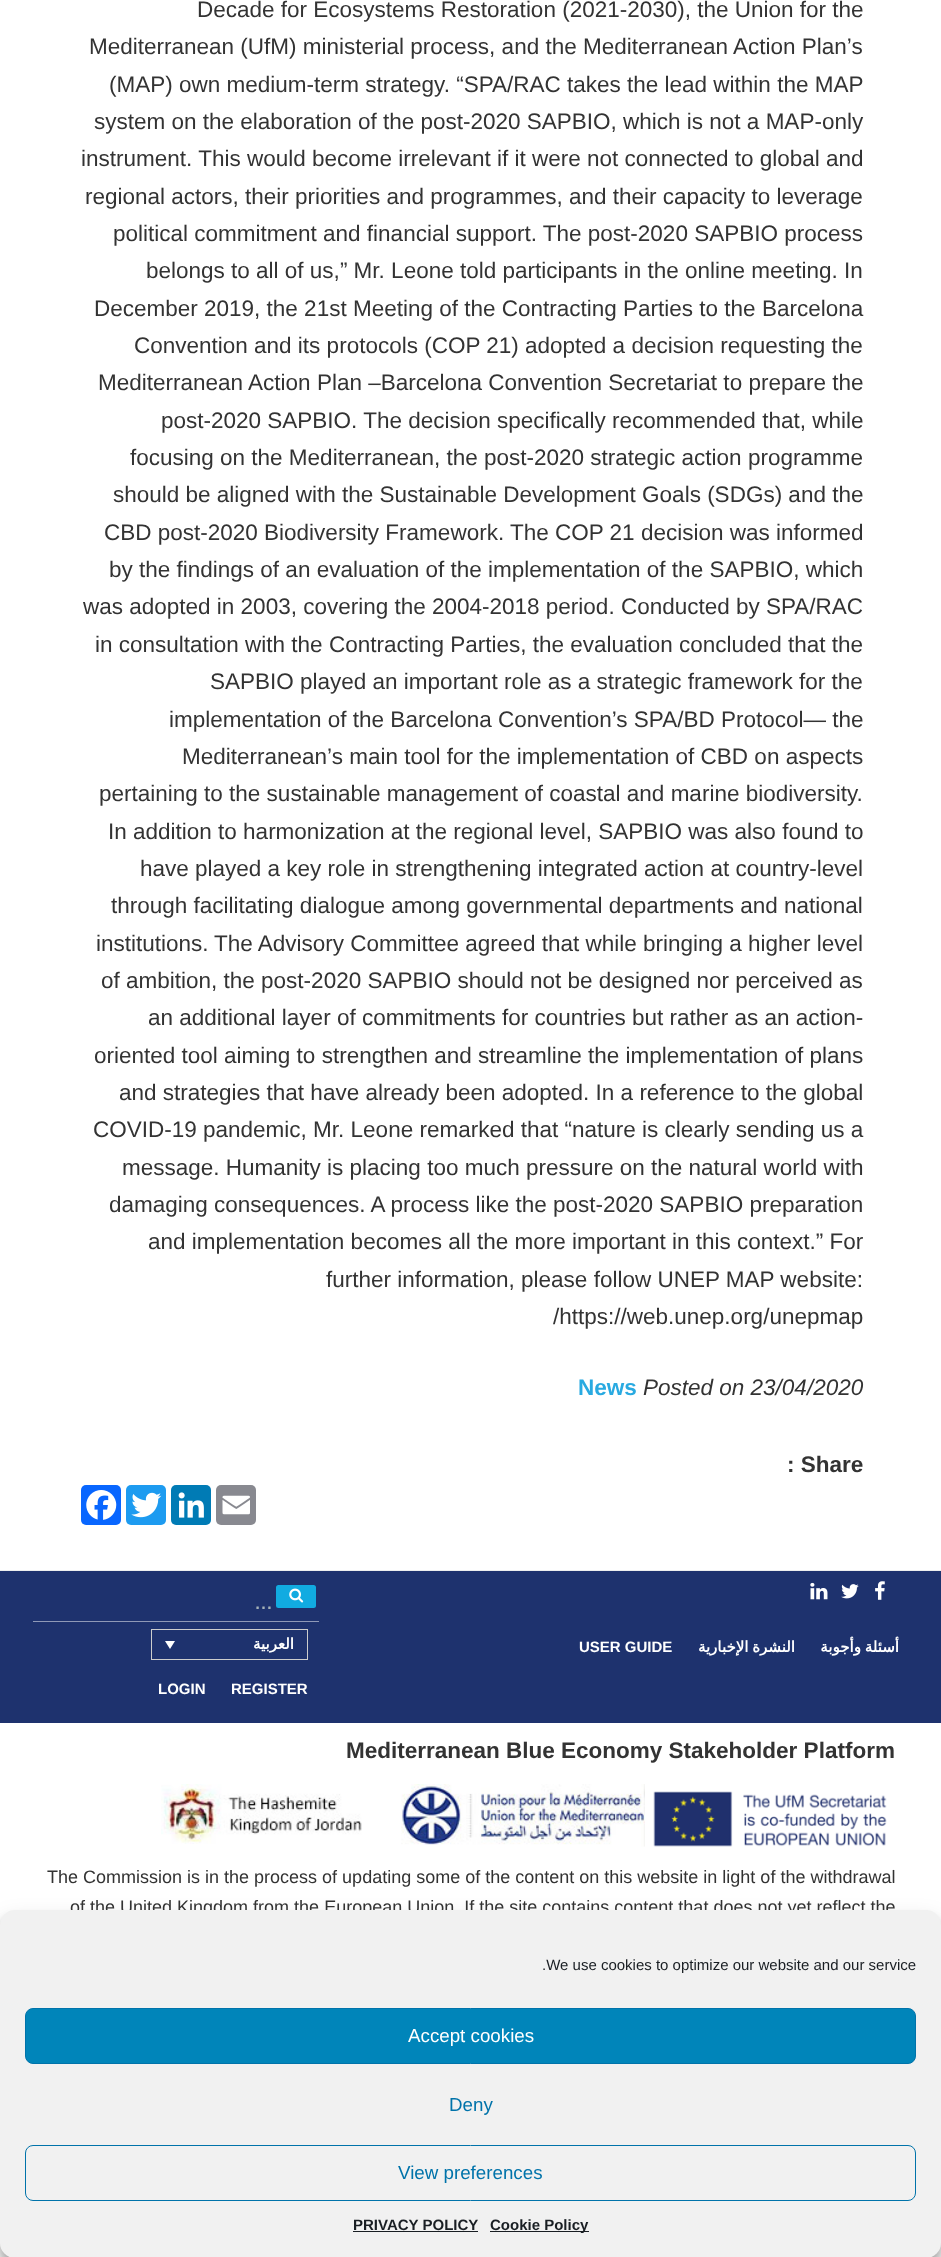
<!DOCTYPE html>
<meta charset="utf-8">
<style>body { margin: 0 } canvas { display: block }</style>
<canvas id="canvas" width="941" height="2257"></canvas>
<img id="img1" src="images/1.png" hidden>
<img id="img2" src="images/2.png" hidden>
<img id="img3" src="images/3.png" hidden>
<img id="img4" src="images/4.png" hidden>
<img id="img5" src="images/5.png" hidden>
<img id="img6" src="images/6.png" hidden>
<img id="img7" src="images/7.png" hidden>
<img id="img8" src="images/8.png" hidden>
<img id="img9" src="images/10.png" hidden>
<img id="img10" src="images/9.png" hidden>
<img id="img11" src="images/11.png" hidden>
<script>
window.onload = function () {
    const canvas = document.getElementById('canvas');
    const context = canvas.getContext('2d');
    context.miterLimit = 4;
    context.fontKerning = 'normal';

    context.fillStyle = 'rgb(255, 255, 255)';
    context.fillRect(0, 0, 941, 2257);
    context.fillStyle = 'rgb(8, 102, 255)';
    context.beginPath();
    context.roundRect(81, 1485, 40, 40, 5);
    context.fill();
    context.drawImage(document.getElementById('img1'), 86, 1490, 31, 30);
    context.fillStyle = 'rgb(29, 155, 240)';
    context.beginPath();
    context.roundRect(126, 1485, 40, 40, 5);
    context.fill();
    context.drawImage(document.getElementById('img2'), 131, 1492, 31, 26);
    context.fillStyle = 'rgb(0, 123, 181)';
    context.beginPath();
    context.roundRect(171, 1485, 40, 40, 5);
    context.fill();
    context.drawImage(document.getElementById('img3'), 178, 1492, 26, 26);
    context.fillStyle = 'rgb(136, 137, 144)';
    context.beginPath();
    context.roundRect(216, 1485, 40, 40, 5);
    context.fill();
    context.drawImage(document.getElementById('img4'), 222, 1495, 28, 20);
    context.fillStyle = 'rgb(238, 238, 238)';
    context.fillRect(0, 1570, 941, 1);
    context.fillStyle = 'rgb(30, 50, 110)';
    context.fillRect(0, 1571, 941, 152);
    context.fillStyle = 'rgb(143, 153, 183)';
    context.fillRect(33, 1621, 286, 1);
    context.fillStyle = 'rgb(17, 171, 225)';
    context.beginPath();
    context.roundRect(276, 1585, 40, 23, 2.5);
    context.fill();
    context.drawImage(document.getElementById('img5'), 289, 1588, 15, 15);
    context.strokeStyle = 'rgb(205, 205, 205)';
    context.strokeRect(151.5, 1629.5, 156, 30);
    context.fillStyle = 'rgb(255, 255, 255)';
    context.beginPath();
    context.moveTo(165, 1641);
    context.lineTo(175, 1641);
    context.lineTo(170, 1649);
    context.closePath();
    context.fill();
    context.drawImage(document.getElementById('img6'), 810, 1582, 18, 18);
    context.drawImage(document.getElementById('img7'), 841, 1584, 18, 15);
    context.drawImage(document.getElementById('img8'), 875, 1581, 10, 19);
    context.drawImage(document.getElementById('img9'), 401, 1784, 244, 63);
    context.drawImage(document.getElementById('img10'), 161, 1784, 241, 60);
    context.drawImage(document.getElementById('img11'), 653, 1791, 234, 56);
    context.fillStyle = 'rgba(0, 0, 0, 0.23)';
    context.filter = 'blur(4px)';
    context.beginPath();
    context.roundRect(0, 1918, 941, 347, 15);
    context.fill();
    context.filter = 'none';
    context.fillStyle = 'rgba(0, 0, 0, 0.19)';
    context.filter = 'blur(12.5px)';
    context.beginPath();
    context.roundRect(0, 1923, 941, 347, 15);
    context.fill();
    context.filter = 'none';
    context.font = '22.5px Liberation Sans';
    context.fillStyle = 'rgb(51, 51, 51)';
    context.fillText('Decade for Ecosystems Restoration (2021-2030), the Union for the', 197, 17);
    context.fillText('Mediterranean (UfM) ministerial process, and the Mediterranean Action Plan’s', 89, 54);
    context.fillText('(MAP) own medium-term strategy. “SPA/RAC takes the lead within the MAP', 109, 92);
    context.fillText('system on the elaboration of the post-2020 SAPBIO, which is not a MAP-only', 94, 129);
    context.fillText('instrument. This would become irrelevant if it were not connected to global and', 81, 166);
    context.fillText('regional actors, their priorities and programmes, and their capacity to leverage', 85, 204);
    context.fillText('political commitment and financial support. The post-2020 SAPBIO process', 113, 241);
    context.fillText('belongs to all of us,” Mr. Leone told participants in the online meeting. In', 146, 278);
    context.fillText('December 2019, the 21st Meeting of the Contracting Parties to the Barcelona', 94, 316);
    context.fillText('Convention and its protocols (COP 21) adopted a decision requesting the', 134, 353);
    context.fillText('Mediterranean Action Plan –Barcelona Convention Secretariat to prepare the', 98, 390);
    context.fillText('post-2020 SAPBIO. The decision specifically recommended that, while', 161, 428);
    context.fillText('focusing on the Mediterranean, the post-2020 strategic action programme', 130, 465);
    context.fillText('should be aligned with the Sustainable Development Goals (SDGs) and the', 113, 502);
    context.fillText('CBD post-2020 Biodiversity Framework. The COP 21 decision was informed', 104, 540);
    context.fillText('by the findings of an evaluation of the implementation of the SAPBIO, which', 109, 577);
    context.fillText('was adopted in 2003, covering the 2004-2018 period. Conducted by SPA/RAC', 83, 614);
    context.fillText('in consultation with the Contracting Parties, the evaluation concluded that the', 95, 652);
    context.fillText('SAPBIO played an important role as a strategic framework for the', 210, 689);
    context.fillText('implementation of the Barcelona Convention’s SPA/BD Protocol— the', 169, 727);
    context.fillText('Mediterranean’s main tool for the implementation of CBD on aspects', 182, 764);
    context.fillText('pertaining to the sustainable management of coastal and marine biodiversity.', 99, 801);
    context.fillText('In addition to harmonization at the regional level, SAPBIO was also found to', 108, 839);
    context.fillText('have played a key role in strengthening integrated action at country-level', 140, 876);
    context.fillText('through facilitating dialogue among governmental departments and national', 111, 913);
    context.fillText('institutions.', 96, 951);
    context.fillText('The Advisory Committee agreed that while bringing a higher level', 214, 951);
    context.fillText('of ambition, the post-2020 SAPBIO should not be designed nor perceived as', 101, 988);
    context.fillText('an additional layer of commitments for countries but rather as an action-', 148, 1025);
    context.fillText('oriented tool aiming to strengthen and streamline the implementation of plans', 94, 1063);
    context.fillText('and strategies that have already been adopted. In a reference to the global', 119, 1100);
    context.fillText('COVID-19 pandemic, Mr. Leone remarked that “nature is clearly sending us a', 93, 1137);
    context.fillText('message. Humanity is placing too much pressure on the natural world with', 122, 1175);
    context.fillText('damaging consequences. A process like the post-2020 SAPBIO preparation', 109, 1212);
    context.fillText('and implementation becomes all the more important in this context.” For', 148, 1249);
    context.fillText('further information, please follow UNEP MAP website:', 326, 1287);
    context.fillText('/https://web.unep.org/unepmap', 553, 1324);
    context.font = 'bold 22.5px Liberation Sans';
    context.fillStyle = 'rgb(41, 170, 225)';
    context.fillText('News', 578, 1395);
    context.font = 'italic 22.5px Liberation Sans';
    context.fillStyle = 'rgb(51, 51, 51)';
    context.fillText('Posted on 23/04/2020', 643, 1395);
    context.font = 'bold 22.5px Liberation Sans';
    context.fillText(': Share', 787, 1472);
    context.direction = 'rtl';
    context.font = '22.5px Libre Franklin';
    context.fillStyle = 'rgb(165, 178, 184)';
    context.fillText('…', 272, 1609);
    context.font = 'bold 15px DejaVu Sans';
    context.fillStyle = 'rgb(255, 255, 255)';
    context.fillText('العربية', 294, 1649);
    context.direction = 'ltr';
    context.font = 'bold 15px Liberation Sans';
    context.fillText('LOGIN', 158, 1694);
    context.fillText('REGISTER', 231, 1694);
    context.fillText('USER GUIDE', 579, 1652);
    context.wordSpacing = '-1px';
    context.direction = 'rtl';
    context.font = 'bold 15px DejaVu Sans';
    context.fillText('النشرة الإخبارية', 795, 1652);
    context.fillText('أسئلة وأجوبة', 899, 1652);
    context.wordSpacing = '0px';
    context.direction = 'ltr';
    context.font = 'bold 22.5px Liberation Sans';
    context.fillStyle = 'rgb(51, 51, 51)';
    context.fillText('Mediterranean Blue Economy Stakeholder Platform', 346, 1758);
    context.font = '18px Liberation Sans';
    context.fillText('The Commission is in the process of updating some of the content on this website in light of the withdrawal', 47, 1883);
    context.fillText('of the United Kingdom from the European Union. If the site contains content that does not yet reflect the', 70, 1913);
    context.fillStyle = 'rgb(241, 241, 241)';
    context.beginPath();
    context.roundRect(0, 1910, 941, 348, 15);
    context.fill();
    context.font = '15px Liberation Sans';
    context.fillStyle = 'rgb(25, 30, 35)';
    context.fillText('.We use cookies to optimize our website and our service', 542, 1970);
    context.fillStyle = 'rgb(0, 133, 186)';
    context.beginPath();
    context.roundRect(25.5, 2008.5, 890, 55, 7.5);
    context.fill();
    context.strokeStyle = 'rgb(0, 115, 170)';
    context.stroke();
    context.font = '18.75px Liberation Sans';
    context.fillStyle = 'rgb(255, 255, 255)';
    context.fillText('Accept cookies', 408, 2042);
    context.fillStyle = 'rgb(0, 115, 170)';
    context.fillText('Deny', 449, 2111);
    context.beginPath();
    context.roundRect(25.5, 2145.5, 890, 55, 7.5);
    context.stroke();
    context.fillText('View preferences', 398, 2179);
    context.font = 'bold 15px Liberation Sans';
    context.fillStyle = 'rgb(25, 30, 35)';
    context.fillText('PRIVACY POLICY', 353, 2230);
    context.fillRect(353, 2231, 125, 1);
    context.fillRect(490, 2231, 99, 1);
    context.fillText('Cookie Policy', 490, 2230);
};
</script>
